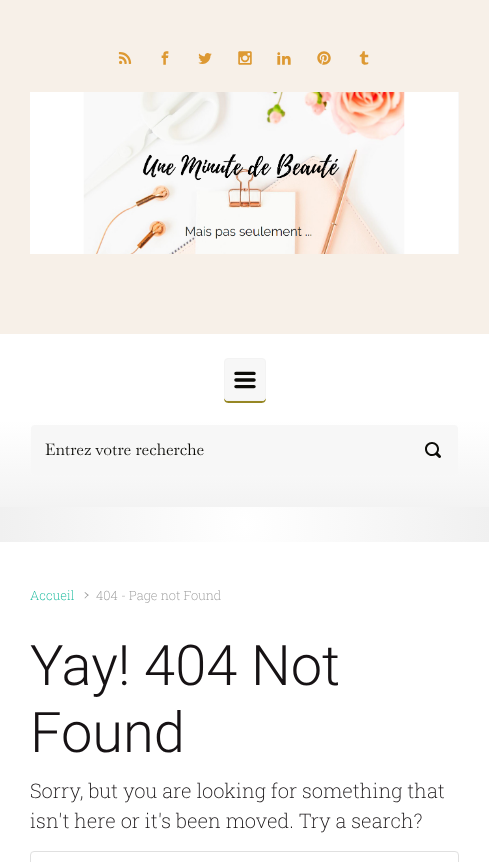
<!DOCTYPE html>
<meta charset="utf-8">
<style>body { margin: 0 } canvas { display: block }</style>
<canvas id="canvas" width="489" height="862"></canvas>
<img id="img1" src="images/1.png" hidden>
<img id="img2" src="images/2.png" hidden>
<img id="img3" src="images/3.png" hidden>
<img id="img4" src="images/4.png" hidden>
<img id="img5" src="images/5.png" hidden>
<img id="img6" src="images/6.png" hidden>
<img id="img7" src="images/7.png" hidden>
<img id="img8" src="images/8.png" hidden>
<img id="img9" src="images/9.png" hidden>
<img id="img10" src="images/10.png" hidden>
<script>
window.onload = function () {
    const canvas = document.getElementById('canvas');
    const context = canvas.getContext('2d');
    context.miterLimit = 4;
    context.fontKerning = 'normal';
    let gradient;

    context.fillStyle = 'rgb(247, 240, 232)';
    context.fillRect(0, 0, 489, 862);
    context.drawImage(document.getElementById('img1'), 118, 52, 14, 12);
    context.drawImage(document.getElementById('img2'), 161, 51, 8, 14);
    context.drawImage(document.getElementById('img3'), 198, 53, 14, 11);
    context.drawImage(document.getElementById('img4'), 238, 51, 14, 14);
    context.drawImage(document.getElementById('img5'), 277, 52, 14, 13);
    context.drawImage(document.getElementById('img6'), 317, 51, 14, 14);
    context.drawImage(document.getElementById('img7'), 359, 51, 10, 14);
    context.drawImage(document.getElementById('img8'), 30, 92, 429, 162);
    gradient = context.createLinearGradient(245, 334, 245, 507);
    gradient.addColorStop(0.5, 'rgb(255, 255, 255)');
    gradient.addColorStop(1, 'rgb(243, 243, 243)');
    context.fillStyle = gradient;
    context.fillRect(0, 334, 489, 173);
    context.fillStyle = 'rgb(150, 135, 36)';
    context.beginPath();
    context.moveTo(224, 397);
    context.bezierCurveTo(224, 404, 227, 403, 234, 403);
    context.lineTo(256, 403);
    context.bezierCurveTo(263, 403, 266, 404, 266, 397);
    context.bezierCurveTo(266, 399, 264, 401, 262, 401);
    context.lineTo(228, 401);
    context.bezierCurveTo(226, 401, 224, 399, 224, 397);
    context.closePath();
    context.fill();
    context.fillStyle = 'rgb(247, 247, 247)';
    context.beginPath();
    context.roundRect(224.5, 358.5, 41, 42, 3.5);
    context.fill();
    context.strokeStyle = 'rgb(243, 243, 243)';
    context.stroke();
    context.drawImage(document.getElementById('img9'), 234, 371, 22, 18);
    context.beginPath();
    context.roundRect(31, 425, 427, 50, 4);
    context.fill();
    context.drawImage(document.getElementById('img10'), 425, 442, 16, 16);
    gradient = context.createRadialGradient(245, 525, 0, 245, 525, 245);
    gradient.addColorStop(0, 'rgb(255, 255, 255)');
    gradient.addColorStop(1, 'rgb(240, 240, 240)');
    context.fillStyle = gradient;
    context.fillRect(0, 507, 489, 35);
    context.fillStyle = 'rgb(255, 255, 255)';
    context.fillRect(0, 542, 489, 320);
    context.fillStyle = 'rgb(153, 153, 153)';
    context.beginPath();
    context.moveTo(84.5, 592.5);
    context.lineTo(85, 592);
    context.lineTo(88.5, 595);
    context.lineTo(88, 596);
    context.closePath();
    context.fill();
    context.beginPath();
    context.moveTo(84.5, 598);
    context.lineTo(88, 594.5);
    context.lineTo(88.5, 595);
    context.lineTo(85, 598.5);
    context.closePath();
    context.fill();
    context.beginPath();
    context.roundRect(30.5, 851.5, 428, 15, 3.5);
    context.strokeStyle = 'rgb(224, 224, 224)';
    context.stroke();
    context.font = '16px Baskervville';
    context.fillStyle = 'rgb(12, 12, 8)';
    context.fillText('Entrez votre recherche', 45, 455);
    context.font = '200 12.75px Roboto Slab';
    context.fillStyle = 'rgb(11, 182, 151)';
    context.fillText('Accueil', 30, 600);
    context.fillStyle = 'rgb(153, 153, 153)';
    context.fillText('404 - Page not Found', 96, 600);
    context.font = '300 56px Roboto';
    context.fillStyle = 'rgb(22, 18, 20)';
    context.fillText('Yay! 404 Not', 30, 685);
    context.fillText('Found', 30, 752);
    context.font = '200 20px Roboto Slab';
    context.fillText('Sorry, but you are looking for something that', 30, 798);
    context.fillText('isn\'t here or it\'s been moved. Try a search?', 30, 828);
};
</script>
